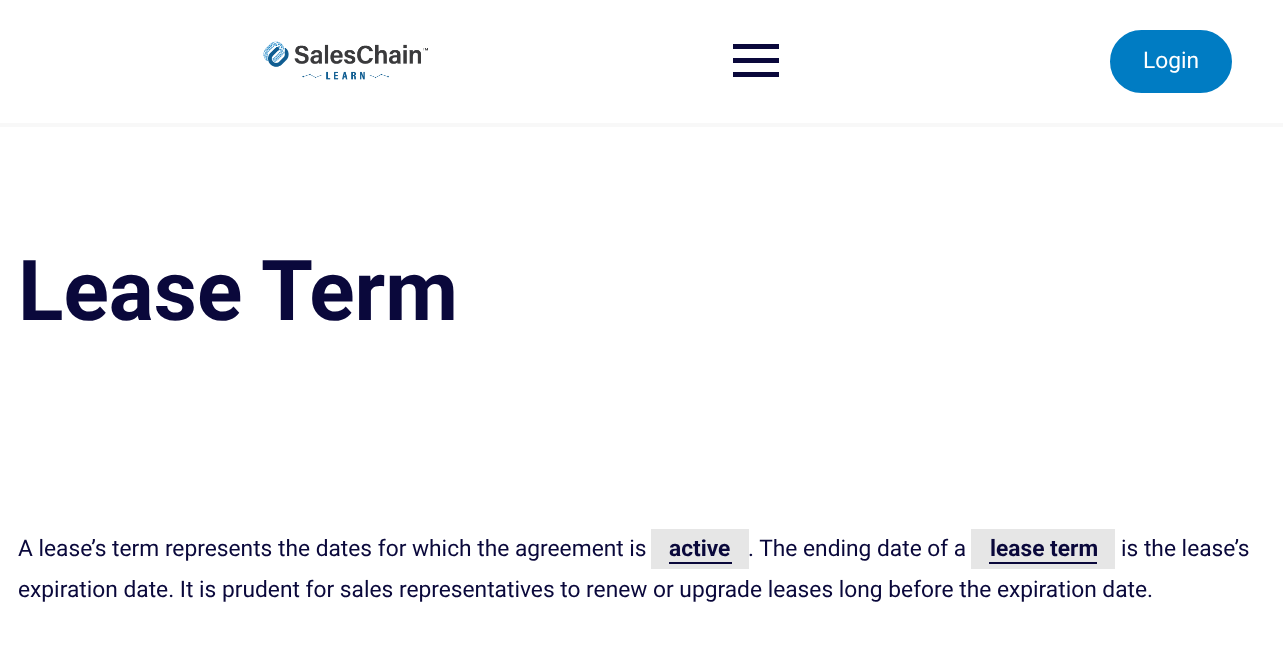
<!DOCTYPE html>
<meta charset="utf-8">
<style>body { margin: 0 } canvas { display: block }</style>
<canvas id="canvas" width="1283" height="651"></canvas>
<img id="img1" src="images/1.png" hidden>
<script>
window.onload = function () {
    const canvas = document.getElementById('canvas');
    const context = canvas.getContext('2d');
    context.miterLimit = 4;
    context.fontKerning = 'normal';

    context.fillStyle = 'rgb(255, 255, 255)';
    context.fillRect(0, 0, 1283, 651);
    context.fillStyle = 'rgb(248, 248, 248)';
    context.fillRect(0, 123, 1283, 4);
    context.drawImage(document.getElementById('img1'), 263, 41, 165, 39);
    context.fillStyle = 'rgb(10, 8, 59)';
    context.fillRect(733, 58, 46, 5);
    context.fillRect(733, 44, 46, 5);
    context.fillRect(733, 72, 46, 5);
    context.fillStyle = 'rgb(0, 124, 195)';
    context.beginPath();
    context.roundRect(1111, 31, 120, 61, 30.5);
    context.fill();
    context.strokeStyle = 'rgb(0, 124, 195)';
    context.lineWidth = 2;
    context.stroke();
    context.fillStyle = 'rgb(230, 230, 230)';
    context.fillRect(651, 529, 98, 40);
    context.fillStyle = 'rgb(10, 8, 59)';
    context.fillRect(669, 562, 63, 2);
    context.fillStyle = 'rgb(230, 230, 230)';
    context.fillRect(971, 529, 144, 40);
    context.fillStyle = 'rgb(10, 8, 59)';
    context.fillRect(989, 562, 108, 2);
    context.font = '22.75px Roboto';
    context.fillStyle = 'rgb(255, 255, 255)';
    context.fillText('Login', 1143, 68);
    context.font = 'bold 84px Roboto';
    context.fillStyle = 'rgb(10, 8, 59)';
    context.fillText('Lease Term', 18, 320);
    context.font = '22.75px Roboto';
    context.fillText('A lease’s term represents the dates for which the agreement is', 18, 556);
    context.font = 'bold 22.75px Roboto';
    context.fillText('active', 669, 556);
    context.font = '22.75px Roboto';
    context.fillText('. The ending date of a', 748, 556);
    context.font = 'bold 22.75px Roboto';
    context.fillText('lease term', 990, 556);
    context.font = '22.75px Roboto';
    context.fillText('is the lease’s', 1121, 556);
    context.fillText('expiration date. It is prudent for sales representatives to renew or upgrade leases long before the expiration date.', 18, 597);
};
</script>
